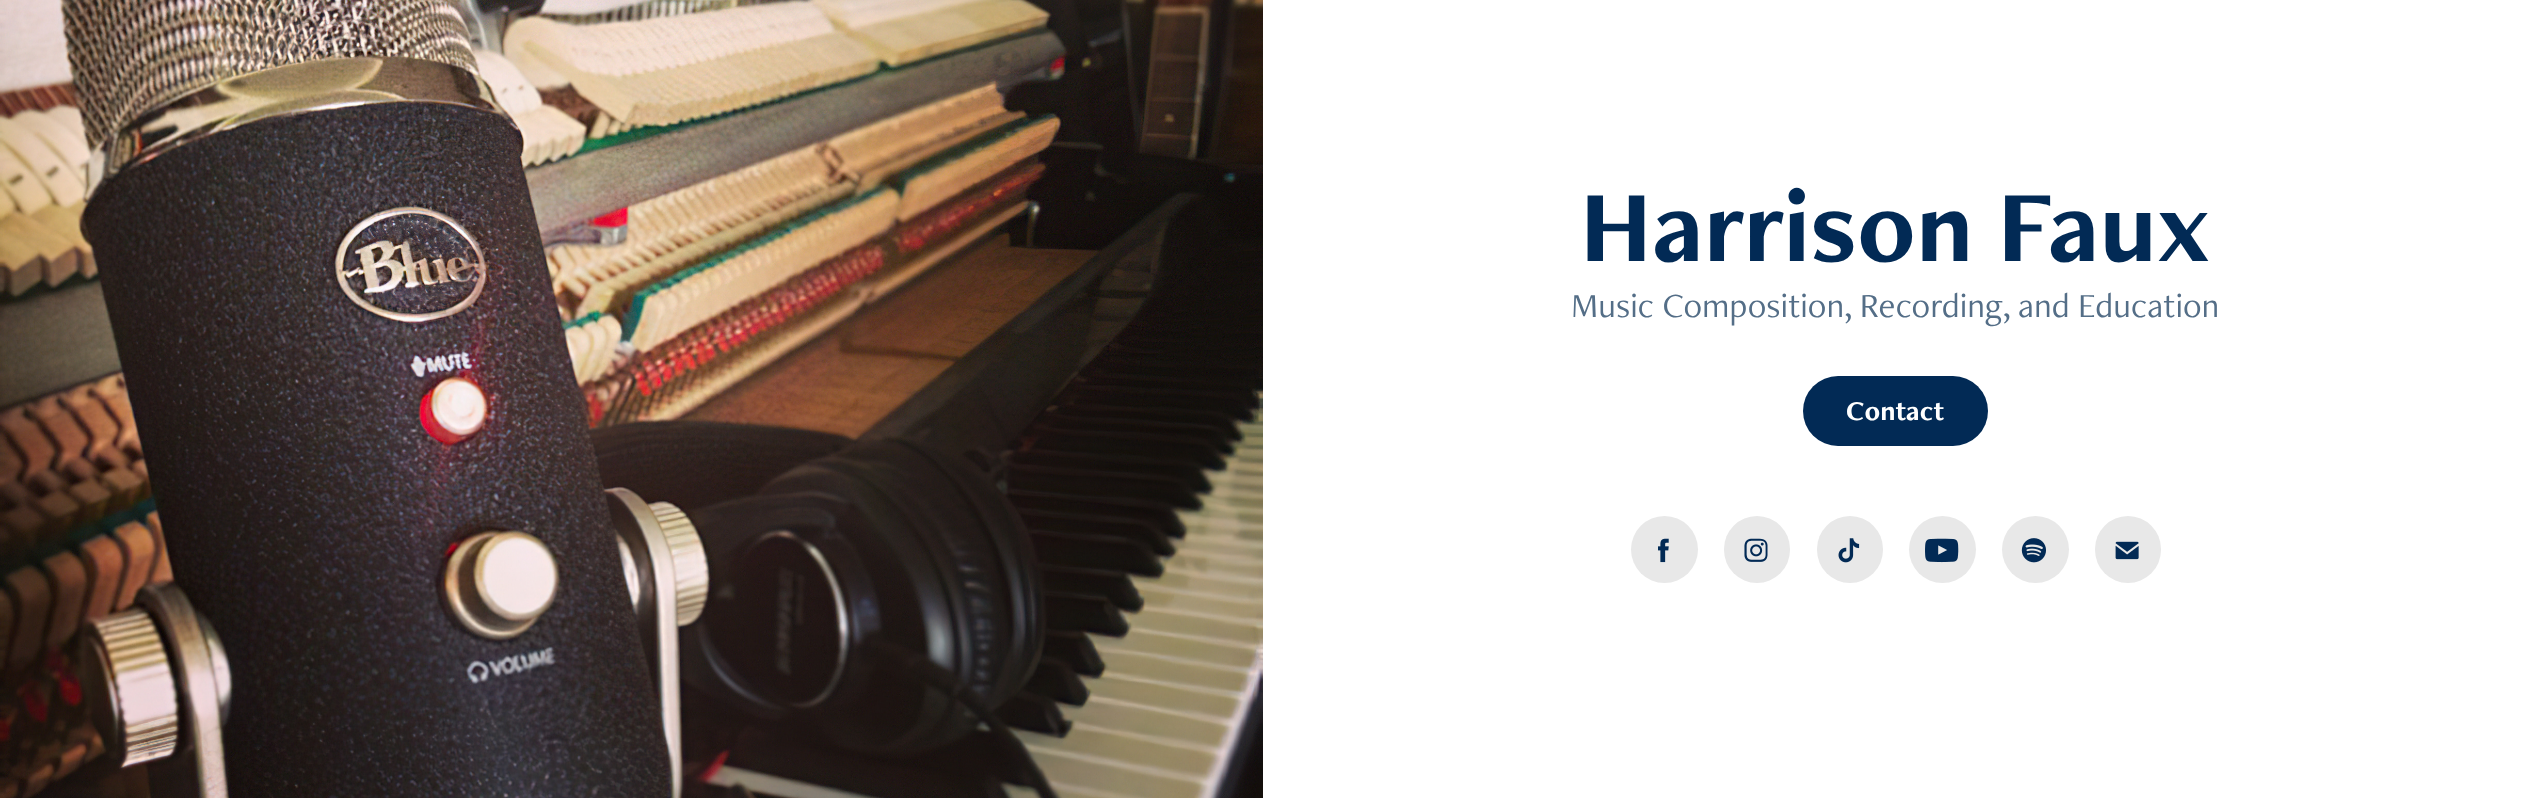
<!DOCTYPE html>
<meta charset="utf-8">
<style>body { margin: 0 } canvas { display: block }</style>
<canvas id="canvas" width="2526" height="798"></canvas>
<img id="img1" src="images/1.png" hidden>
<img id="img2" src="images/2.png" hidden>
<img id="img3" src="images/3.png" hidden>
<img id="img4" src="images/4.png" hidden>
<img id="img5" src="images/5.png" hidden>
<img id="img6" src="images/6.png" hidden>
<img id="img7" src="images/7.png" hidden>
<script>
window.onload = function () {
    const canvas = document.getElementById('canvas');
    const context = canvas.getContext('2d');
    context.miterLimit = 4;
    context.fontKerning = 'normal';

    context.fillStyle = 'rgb(255, 255, 255)';
    context.fillRect(0, 0, 2526, 798);
    context.drawImage(document.getElementById('img1'), 0, 0, 1263, 798);
    context.fillStyle = 'rgb(2, 42, 85)';
    context.beginPath();
    context.roundRect(1803, 376, 185, 70, 35);
    context.fill();
    context.fillStyle = 'rgb(232, 232, 232)';
    context.beginPath();
    context.arc(1664.5, 549.5, 33.5, 0, 2 * Math.PI);
    context.fill();
    context.drawImage(document.getElementById('img2'), 1658, 538, 11, 25);
    context.beginPath();
    context.roundRect(1724, 516, 66, 67, 33);
    context.fill();
    context.drawImage(document.getElementById('img3'), 1744, 538, 24, 24);
    context.beginPath();
    context.roundRect(1817, 516, 66, 67, 33);
    context.fill();
    context.drawImage(document.getElementById('img4'), 1838, 538, 22, 25);
    context.beginPath();
    context.arc(1942.5, 549.5, 33.5, 0, 2 * Math.PI);
    context.fill();
    context.drawImage(document.getElementById('img5'), 1925, 538, 34, 25);
    context.beginPath();
    context.arc(2035.5, 549.5, 33.5, 0, 2 * Math.PI);
    context.fill();
    context.drawImage(document.getElementById('img6'), 2021, 538, 25, 25);
    context.beginPath();
    context.roundRect(2095, 516, 66, 67, 33);
    context.fill();
    context.drawImage(document.getElementById('img7'), 2115, 541, 24, 19);
    context.font = 'bold 105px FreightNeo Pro';
    context.fillStyle = 'rgb(2, 42, 85)';
    context.fillText('Harrison Faux', 1580, 261);
    context.font = '35px FreightNeo Pro';
    context.fillStyle = 'rgb(84, 110, 135)';
    context.fillText('Music Composition, Recording, and Education', 1571, 317);
    context.font = 'bold 28px FreightNeo Pro';
    context.fillStyle = 'rgb(255, 255, 255)';
    context.fillText('Contact', 1846, 420);
};
</script>
